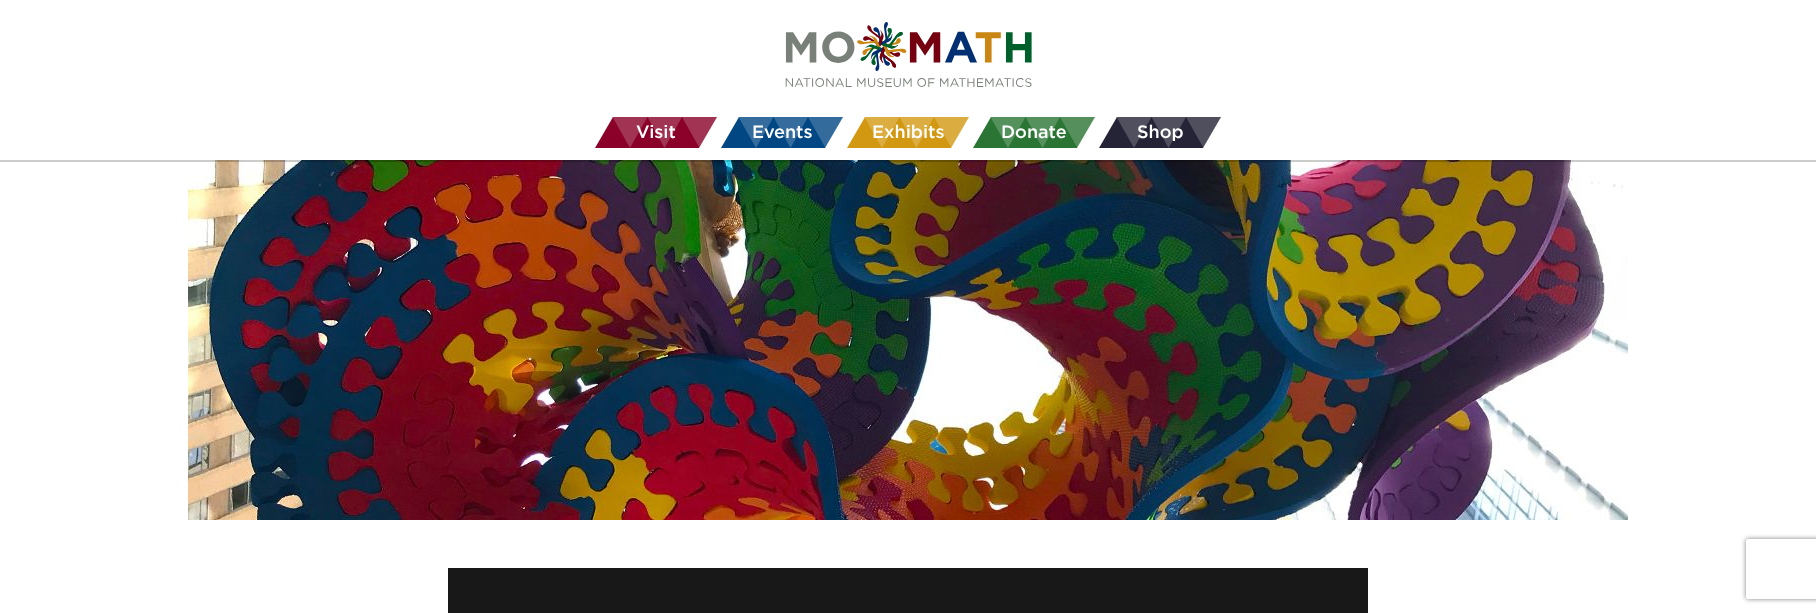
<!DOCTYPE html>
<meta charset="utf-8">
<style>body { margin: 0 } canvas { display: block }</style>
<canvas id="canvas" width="1816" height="613"></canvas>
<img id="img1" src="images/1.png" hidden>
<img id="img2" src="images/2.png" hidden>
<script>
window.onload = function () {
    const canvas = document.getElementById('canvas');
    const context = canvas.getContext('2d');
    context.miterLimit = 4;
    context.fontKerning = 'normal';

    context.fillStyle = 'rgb(255, 255, 255)';
    context.fillRect(0, 0, 1816, 613);
    context.drawImage(document.getElementById('img1'), 785, 22, 247, 65);
    context.drawImage(document.getElementById('img2'), 188, 160, 1440, 360);
    context.fillStyle = 'rgba(0, 0, 0, 0.2)';
    context.fillRect(0, 160, 1816, 2);
    context.fillStyle = 'rgb(138, 0, 40)';
    context.beginPath();
    context.moveTo(699, 148);
    context.lineTo(595, 148);
    context.lineTo(613, 117);
    context.lineTo(717, 117);
    context.closePath();
    context.fill();
    context.fillStyle = 'rgb(161, 51, 83)';
    context.beginPath();
    context.moveTo(630, 148);
    context.lineTo(647.5, 117);
    context.lineTo(612.5, 117);
    context.closePath();
    context.fill();
    context.beginPath();
    context.moveTo(664.5, 148);
    context.lineTo(682, 117);
    context.lineTo(647.5, 117);
    context.closePath();
    context.fill();
    context.fillStyle = 'rgba(255, 255, 255, 0.2)';
    context.beginPath();
    context.moveTo(699.5, 148);
    context.lineTo(717, 117);
    context.lineTo(682, 117);
    context.closePath();
    context.fill();
    context.fillStyle = 'rgb(0, 71, 132)';
    context.beginPath();
    context.moveTo(825, 148);
    context.lineTo(721, 148);
    context.lineTo(739, 117);
    context.lineTo(843, 117);
    context.closePath();
    context.fill();
    context.fillStyle = 'rgb(51, 108, 157)';
    context.beginPath();
    context.moveTo(756, 148);
    context.lineTo(773.5, 117);
    context.lineTo(738.5, 117);
    context.closePath();
    context.fill();
    context.beginPath();
    context.moveTo(790.5, 148);
    context.lineTo(808, 117);
    context.lineTo(773.5, 117);
    context.closePath();
    context.fill();
    context.fillStyle = 'rgba(255, 255, 255, 0.2)';
    context.beginPath();
    context.moveTo(825.5, 148);
    context.lineTo(843, 117);
    context.lineTo(808, 117);
    context.closePath();
    context.fill();
    context.fillStyle = 'rgb(211, 152, 17)';
    context.beginPath();
    context.moveTo(951, 148);
    context.lineTo(847, 148);
    context.lineTo(865, 117);
    context.lineTo(969, 117);
    context.closePath();
    context.fill();
    context.fillStyle = 'rgb(220, 173, 65)';
    context.beginPath();
    context.moveTo(882, 148);
    context.lineTo(899.5, 117);
    context.lineTo(864.5, 117);
    context.closePath();
    context.fill();
    context.beginPath();
    context.moveTo(916.5, 148);
    context.lineTo(934, 117);
    context.lineTo(899.5, 117);
    context.closePath();
    context.fill();
    context.fillStyle = 'rgba(255, 255, 255, 0.2)';
    context.beginPath();
    context.moveTo(951.5, 148);
    context.lineTo(969, 117);
    context.lineTo(934, 117);
    context.closePath();
    context.fill();
    context.fillStyle = 'rgb(43, 117, 52)';
    context.beginPath();
    context.moveTo(1077, 148);
    context.lineTo(973, 148);
    context.lineTo(991, 117);
    context.lineTo(1095, 117);
    context.closePath();
    context.fill();
    context.fillStyle = 'rgb(85, 145, 93)';
    context.beginPath();
    context.moveTo(1008, 148);
    context.lineTo(1025.5, 117);
    context.lineTo(990.5, 117);
    context.closePath();
    context.fill();
    context.beginPath();
    context.moveTo(1042.5, 148);
    context.lineTo(1060, 117);
    context.lineTo(1025.5, 117);
    context.closePath();
    context.fill();
    context.fillStyle = 'rgba(255, 255, 255, 0.2)';
    context.beginPath();
    context.moveTo(1077.5, 148);
    context.lineTo(1095, 117);
    context.lineTo(1060, 117);
    context.closePath();
    context.fill();
    context.fillStyle = 'rgb(36, 36, 54)';
    context.beginPath();
    context.moveTo(1203, 148);
    context.lineTo(1099, 148);
    context.lineTo(1117, 117);
    context.lineTo(1221, 117);
    context.closePath();
    context.fill();
    context.fillStyle = 'rgb(80, 80, 94)';
    context.beginPath();
    context.moveTo(1134, 148);
    context.lineTo(1151.5, 117);
    context.lineTo(1116.5, 117);
    context.closePath();
    context.fill();
    context.beginPath();
    context.moveTo(1168.5, 148);
    context.lineTo(1186, 117);
    context.lineTo(1151.5, 117);
    context.closePath();
    context.fill();
    context.fillStyle = 'rgba(255, 255, 255, 0.2)';
    context.beginPath();
    context.moveTo(1203.5, 148);
    context.lineTo(1221, 117);
    context.lineTo(1186, 117);
    context.closePath();
    context.fill();
    context.fillStyle = 'rgb(24, 24, 24)';
    context.fillRect(448, 568, 920, 45);
    context.save();
    context.beginPath();
    context.moveTo(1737, 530);
    context.lineTo(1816, 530);
    context.lineTo(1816, 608);
    context.lineTo(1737, 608);
    context.closePath();
    context.moveTo(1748, 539);
    context.lineTo(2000, 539);
    context.bezierCurveTo(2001, 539, 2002, 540, 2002, 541);
    context.lineTo(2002, 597);
    context.bezierCurveTo(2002, 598, 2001, 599, 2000, 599);
    context.lineTo(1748, 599);
    context.bezierCurveTo(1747, 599, 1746, 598, 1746, 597);
    context.lineTo(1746, 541);
    context.bezierCurveTo(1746, 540, 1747, 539, 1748, 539);
    context.closePath();
    context.clip('evenodd');
    context.fillStyle = 'rgb(128, 128, 128)';
    context.filter = 'blur(2.5px)';
    context.beginPath();
    context.roundRect(1746, 539, 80, 60, 2);
    context.fill();
    context.filter = 'none';
    context.restore();
    context.font = '500 18px Gotham';
    context.fillStyle = 'rgb(255, 255, 255)';
    context.fillText('Visit', 636, 138);
    context.fillText('Events', 752, 138);
    context.fillText('Exhibits', 872, 138);
    context.fillText('Donate', 1001, 138);
    context.fillText('Shop', 1137, 138);
};
</script>
